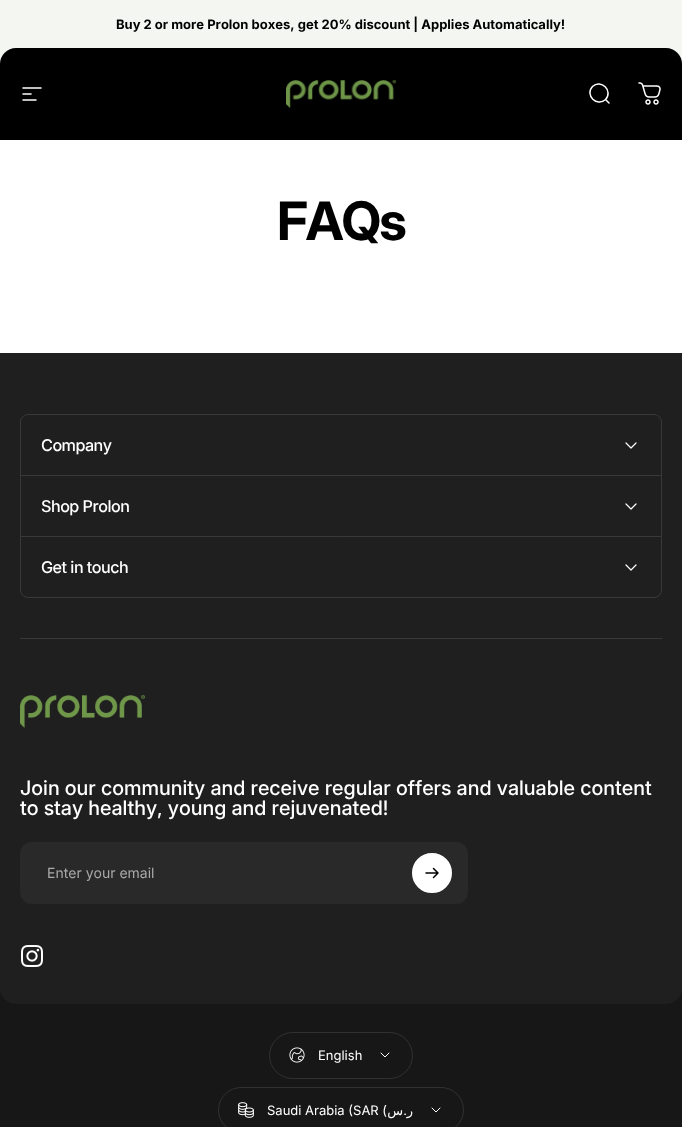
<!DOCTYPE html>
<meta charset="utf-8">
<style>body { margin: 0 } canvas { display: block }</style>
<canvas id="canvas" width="682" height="1127"></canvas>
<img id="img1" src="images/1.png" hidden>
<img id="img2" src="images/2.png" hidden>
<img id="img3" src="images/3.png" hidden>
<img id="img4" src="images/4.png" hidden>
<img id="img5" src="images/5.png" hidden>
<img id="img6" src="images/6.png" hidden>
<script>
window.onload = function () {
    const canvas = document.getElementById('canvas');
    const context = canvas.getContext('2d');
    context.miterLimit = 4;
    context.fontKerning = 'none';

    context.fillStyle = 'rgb(255, 255, 255)';
    context.fillRect(0, 0, 682, 1127);
    context.fillStyle = 'rgb(244, 247, 241)';
    context.fillRect(0, 0, 682, 16);
    context.beginPath();
    context.roundRect(0, 0, 682, 64, [16, 16, 0, 0]);
    context.fill();
    context.fillStyle = 'rgb(0, 0, 0)';
    context.beginPath();
    context.roundRect(0, 48, 682, 92, [16, 16, 0, 0]);
    context.fill();
    context.beginPath();
    context.moveTo(23, 88);
    context.lineTo(41, 88);
    context.moveTo(23, 94);
    context.lineTo(31, 94);
    context.moveTo(23, 100);
    context.lineTo(36, 100);
    context.strokeStyle = 'rgb(255, 255, 255)';
    context.lineWidth = 1.5;
    context.lineCap = 'round';
    context.stroke();
    context.drawImage(document.getElementById('img1'), 286, 80, 110, 28);
    context.beginPath();
    context.moveTo(609, 103);
    context.lineTo(605.5, 99.5);
    context.moveTo(605.5, 99.5);
    context.bezierCurveTo(613.5, 91, 601, 78.5, 592.5, 86.5);
    context.bezierCurveTo(584.5, 95, 597, 107.5, 605.5, 99.5);
    context.closePath();
    context.stroke();
    context.drawImage(document.getElementById('img2'), 638, 82, 23, 23);
    context.fillStyle = 'rgb(23, 23, 23)';
    context.fillRect(0, 988, 682, 139);
    context.fillStyle = 'rgb(31, 31, 31)';
    context.beginPath();
    context.roundRect(0, 353, 682, 651, [0, 0, 16, 16]);
    context.fill();
    context.fillStyle = 'rgb(57, 57, 57)';
    context.beginPath();
    context.moveTo(28, 414);
    context.lineTo(654, 414);
    context.bezierCurveTo(658, 414, 662, 418, 662, 422);
    context.lineTo(662, 475);
    context.lineTo(20, 475);
    context.lineTo(20, 422);
    context.bezierCurveTo(20, 418, 24, 414, 28, 414);
    context.closePath();
    context.moveTo(28, 415);
    context.lineTo(654, 415);
    context.bezierCurveTo(658, 415, 661, 418, 661, 422);
    context.lineTo(661, 475);
    context.lineTo(21, 475);
    context.lineTo(21, 422);
    context.bezierCurveTo(21, 418, 24, 415, 28, 415);
    context.closePath();
    context.fill('evenodd');
    context.beginPath();
    context.moveTo(626, 443);
    context.lineTo(631, 448);
    context.lineTo(636, 443);
    context.lineWidth = 1.2;
    context.lineJoin = 'round';
    context.stroke();
    context.beginPath();
    context.moveTo(20, 475);
    context.lineTo(662, 475);
    context.lineTo(661, 476);
    context.lineTo(21, 476);
    context.closePath();
    context.fill();
    context.fillStyle = 'rgba(255, 255, 255, 0.11)';
    context.beginPath();
    context.moveTo(662, 475);
    context.lineTo(662, 536);
    context.lineTo(661, 536);
    context.lineTo(661, 476);
    context.closePath();
    context.fill();
    context.beginPath();
    context.moveTo(20, 536);
    context.lineTo(20, 475);
    context.lineTo(21, 476);
    context.lineTo(21, 536);
    context.closePath();
    context.fill();
    context.beginPath();
    context.moveTo(626, 504);
    context.lineTo(631, 509);
    context.lineTo(636, 504);
    context.stroke();
    context.beginPath();
    context.roundRect(20.5, 536.5, 641, 61, [0, 0, 7.5, 7.5]);
    context.strokeStyle = 'rgb(57, 57, 57)';
    context.lineWidth = 1;
    context.lineJoin = 'miter';
    context.stroke();
    context.beginPath();
    context.moveTo(626, 565);
    context.lineTo(631, 570);
    context.lineTo(636, 565);
    context.strokeStyle = 'rgb(255, 255, 255)';
    context.lineWidth = 1.2;
    context.lineJoin = 'round';
    context.stroke();
    context.fillStyle = 'rgb(57, 57, 57)';
    context.fillRect(20, 638, 642, 1);
    context.drawImage(document.getElementById('img3'), 20, 695, 125, 33);
    context.fillStyle = 'rgb(41, 41, 41)';
    context.beginPath();
    context.roundRect(20, 842, 448, 62, 12);
    context.fill();
    context.fillStyle = 'rgb(255, 255, 255)';
    context.beginPath();
    context.arc(432, 873, 19, 0, 2 * Math.PI);
    context.fill();
    context.lineWidth = 2;
    context.stroke();
    context.beginPath();
    context.moveTo(426, 873);
    context.lineTo(438, 873);
    context.moveTo(438, 873);
    context.lineTo(433.5, 868.5);
    context.moveTo(438, 873);
    context.lineTo(433.5, 877.5);
    context.strokeStyle = 'rgb(0, 0, 0)';
    context.lineWidth = 1.5;
    context.stroke();
    context.drawImage(document.getElementById('img4'), 21, 945, 22, 22);
    context.beginPath();
    context.roundRect(269.5, 1032.5, 143, 46, 23);
    context.strokeStyle = 'rgb(49, 49, 49)';
    context.lineWidth = 1;
    context.lineJoin = 'miter';
    context.stroke();
    context.drawImage(document.getElementById('img5'), 289, 1047, 16, 16);
    context.beginPath();
    context.moveTo(381, 1053);
    context.lineTo(385, 1057);
    context.lineTo(389, 1053);
    context.strokeStyle = 'rgb(255, 255, 255)';
    context.lineJoin = 'round';
    context.stroke();
    context.beginPath();
    context.roundRect(218.5, 1087.5, 245, 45, 22.5);
    context.strokeStyle = 'rgb(49, 49, 49)';
    context.lineJoin = 'miter';
    context.stroke();
    context.drawImage(document.getElementById('img6'), 238, 1102, 16, 16);
    context.beginPath();
    context.moveTo(432, 1108);
    context.lineTo(436, 1112);
    context.lineTo(440, 1108);
    context.strokeStyle = 'rgb(255, 255, 255)';
    context.lineJoin = 'round';
    context.stroke();
    context.font = 'bold 13px Inter';
    context.fillStyle = 'rgb(0, 0, 0)';
    context.fillText('Buy 2 or more Prolon boxes, get 20% discount | Applies Automatically!', 116, 29);
    context.letterSpacing = '-2px';
    context.font = 'bold 53px "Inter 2"';
    context.fillText('FAQs', 277, 240);
    context.letterSpacing = '-0.5px';
    context.font = '500 16.25px Inter';
    context.fillStyle = 'rgb(255, 255, 255)';
    context.fillText('Company', 41, 451);
    context.fillText('Shop Prolon', 41, 512);
    context.fillText('Get in touch', 41, 573);
    context.letterSpacing = '0px';
    context.font = '500 20px "Inter 2"';
    context.fillText('Join our community and receive regular offers and valuable content', 20, 795);
    context.fillText('to stay healthy, young and rejuvenated!', 20, 815);
    context.font = '14px Inter';
    context.fillStyle = 'rgb(169, 169, 169)';
    context.fillText('Enter your email', 47, 878);
    context.font = '13px Inter';
    context.fillStyle = 'rgb(255, 255, 255)';
    context.fillText('English', 318, 1060);
    context.fillText('Saudi Arabia (SAR', 267, 1115);
    context.direction = 'rtl';
    context.fillText(')', 387, 1115);
    context.font = '13px DejaVu Sans';
    context.fillText('س', 403, 1115);
    context.font = '13px Inter';
    context.fillText('.', 407, 1115);
    context.font = '13px DejaVu Sans';
    context.fillText('ر', 413, 1115);
};
</script>
